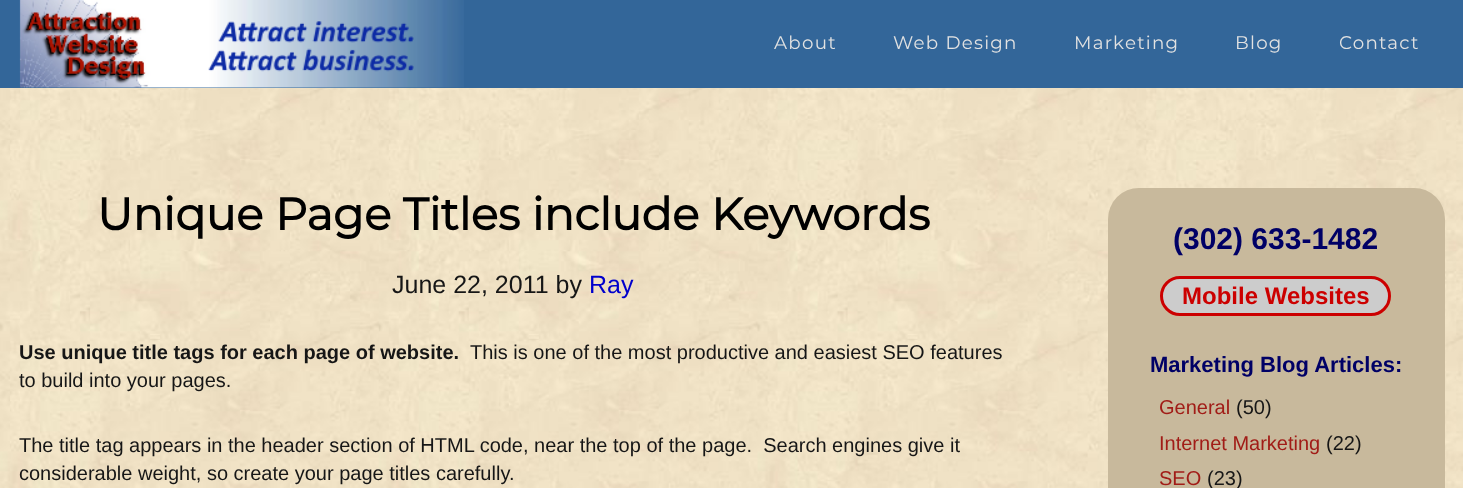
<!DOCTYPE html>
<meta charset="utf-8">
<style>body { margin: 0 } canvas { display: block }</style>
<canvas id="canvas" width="1463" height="488"></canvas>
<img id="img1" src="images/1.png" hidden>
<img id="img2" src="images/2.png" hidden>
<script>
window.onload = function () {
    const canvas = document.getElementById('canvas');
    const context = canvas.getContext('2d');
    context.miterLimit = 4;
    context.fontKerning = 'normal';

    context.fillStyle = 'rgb(255, 255, 255)';
    context.fillRect(0, 0, 1463, 488);
    context.drawImage(document.getElementById('img1'), 0, 88, 1463, 400);
    context.fillStyle = 'rgb(51, 102, 153)';
    context.fillRect(0, 0, 1463, 88);
    context.drawImage(document.getElementById('img2'), 19, 0, 445, 88);
    context.fillStyle = 'rgb(200, 185, 156)';
    context.beginPath();
    context.roundRect(1108, 188, 337, 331, 31);
    context.fill();
    context.fillStyle = 'rgb(204, 204, 204)';
    context.beginPath();
    context.roundRect(1161.5, 277.5, 228, 37, 18.5);
    context.fill();
    context.strokeStyle = 'rgb(204, 0, 0)';
    context.lineWidth = 3;
    context.stroke();
    context.letterSpacing = '1.25px';
    context.font = '100 18.25px Montserrat';
    context.fillStyle = 'rgb(226, 226, 226)';
    context.fillText('About', 774, 49);
    context.fillText('Web Design', 893, 49);
    context.fillText('Marketing', 1074, 49);
    context.fillText('Blog', 1235, 49);
    context.fillText('Contact', 1339, 49);
    context.letterSpacing = '0px';
    context.font = 'bold 45px Montserrat';
    context.fillStyle = 'rgb(0, 0, 0)';
    context.fillText('Unique Page Titles include Keywords', 97, 230);
    context.font = '25px Liberation Sans';
    context.fillStyle = 'rgb(22, 22, 22)';
    context.fillText('June 22, 2011 by', 392, 293);
    context.fillStyle = 'rgb(0, 0, 204)';
    context.fillText('Ray', 589, 293);
    context.font = 'bold 20px Liberation Sans';
    context.fillStyle = 'rgb(22, 22, 22)';
    context.fillText('Use unique title tags for each page of website.', 19, 359);
    context.font = '20px Liberation Sans';
    context.fillText('This is one of the most productive and easiest SEO features', 470, 359);
    context.fillText('to build into your pages.', 19, 387);
    context.fillText('The title tag appears in the header section of HTML code, near the top of the page.  Search engines give it', 19, 452);
    context.fillText('considerable weight, so create your page titles carefully.', 19, 480);
    context.font = 'bold 30px Liberation Sans';
    context.fillStyle = 'rgb(0, 0, 102)';
    context.fillText('(302) 633-1482', 1173, 249);
    context.font = 'bold 24px Liberation Sans';
    context.fillStyle = 'rgb(204, 0, 0)';
    context.fillText('Mobile Websites', 1182, 304);
    context.font = 'bold 22px Liberation Sans';
    context.fillStyle = 'rgb(0, 0, 102)';
    context.fillText('Marketing Blog Articles:', 1150, 372);
    context.font = '20px Liberation Sans';
    context.fillStyle = 'rgb(161, 28, 23)';
    context.fillText('General', 1159, 414);
    context.fillStyle = 'rgb(22, 22, 22)';
    context.fillText('(50)', 1236, 414);
    context.fillStyle = 'rgb(161, 28, 23)';
    context.fillText('Internet Marketing', 1159, 450);
    context.fillStyle = 'rgb(22, 22, 22)';
    context.fillText('(22)', 1326, 450);
    context.fillStyle = 'rgb(161, 28, 23)';
    context.fillText('SEO', 1159, 485);
    context.fillStyle = 'rgb(22, 22, 22)';
    context.fillText('(23)', 1207, 485);
};
</script>
